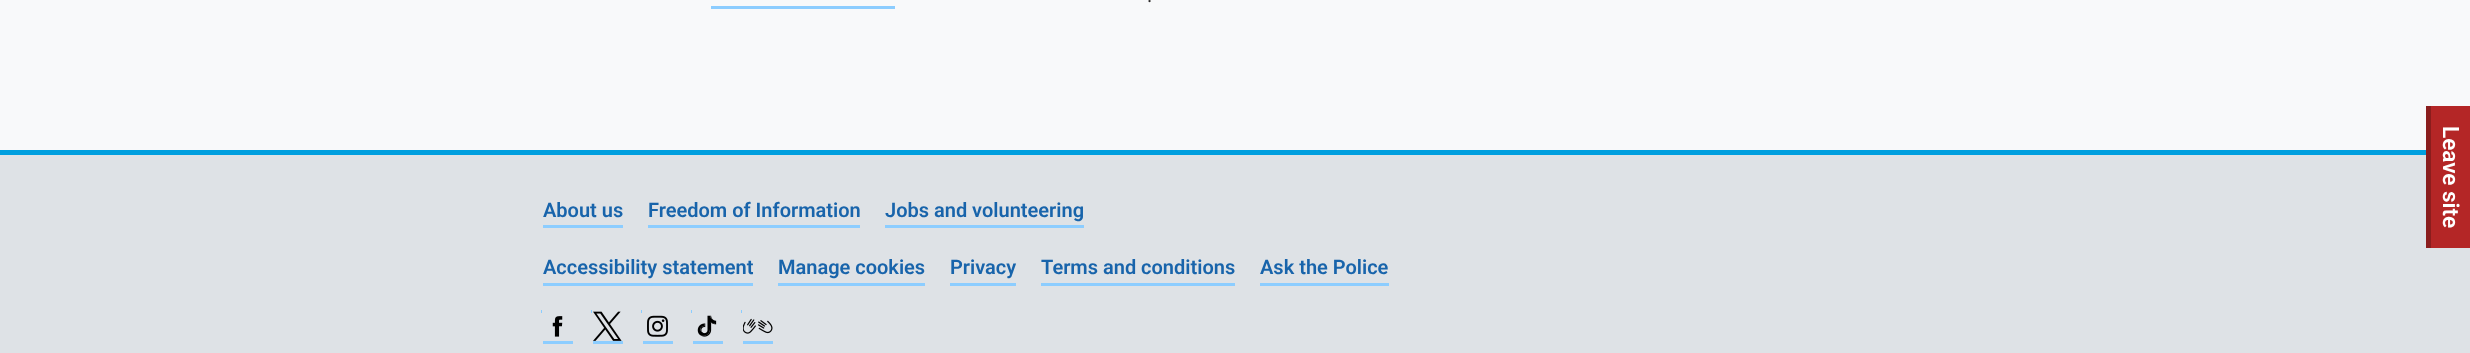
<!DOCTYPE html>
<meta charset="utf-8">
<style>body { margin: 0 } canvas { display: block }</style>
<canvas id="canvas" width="2470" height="353"></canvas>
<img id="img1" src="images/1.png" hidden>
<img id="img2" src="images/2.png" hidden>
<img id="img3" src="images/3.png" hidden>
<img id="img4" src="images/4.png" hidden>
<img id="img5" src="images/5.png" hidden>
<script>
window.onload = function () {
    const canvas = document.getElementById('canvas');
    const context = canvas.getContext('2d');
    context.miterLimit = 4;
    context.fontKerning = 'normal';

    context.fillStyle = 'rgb(222, 226, 230)';
    context.fillRect(0, 0, 2470, 353);
    context.fillStyle = 'rgb(248, 249, 250)';
    context.fillRect(0, 0, 2470, 150);
    context.fillStyle = 'rgb(140, 205, 255)';
    context.fillRect(711, 6, 184, 3);
    context.fillStyle = 'rgb(180, 38, 38)';
    context.fillRect(2431, 106, 39, 142);
    context.fillStyle = 'rgb(138, 29, 29)';
    context.fillRect(2426, 106, 5, 142);
    context.fillStyle = 'rgb(0, 159, 223)';
    context.fillRect(0, 150, 2426, 5);
    context.fillStyle = 'rgb(140, 205, 255)';
    context.fillRect(543, 225, 80, 3);
    context.fillRect(648, 225, 212, 3);
    context.fillRect(885, 225, 199, 3);
    context.fillRect(543, 283, 210, 3);
    context.fillRect(778, 283, 147, 3);
    context.fillRect(950, 283, 66, 3);
    context.fillRect(1041, 283, 194, 3);
    context.fillRect(1260, 283, 129, 3);
    context.fillRect(541, 310, 1, 3);
    context.drawImage(document.getElementById('img1'), 552, 316, 11, 21);
    context.fillRect(543, 341, 30, 3);
    context.fillRect(591, 310, 1, 3);
    context.drawImage(document.getElementById('img2'), 593, 311, 29, 30);
    context.fillRect(593, 341, 30, 3);
    context.fillRect(641, 310, 1, 3);
    context.drawImage(document.getElementById('img3'), 647, 315, 21, 22);
    context.fillRect(643, 341, 30, 3);
    context.fillRect(691, 310, 1, 3);
    context.drawImage(document.getElementById('img4'), 697, 315, 20, 22);
    context.fillRect(693, 341, 30, 3);
    context.fillRect(741, 310, 1, 3);
    context.drawImage(document.getElementById('img5'), 743, 318, 30, 16);
    context.fillRect(743, 341, 30, 3);
    context.font = '20px Roboto';
    context.fillStyle = 'rgb(44, 42, 41)';
    context.fillText('.', 1147, 2);
    context.font = '600 22.5px Roboto';
    context.fillStyle = 'rgb(255, 255, 255)';
    context.save();
    context.translate(2443, 126);
    context.rotate(90 * Math.PI / 180);
    context.fillText('Leave site', 0, 0);
    context.restore();
    context.font = '600 20px Roboto';
    context.fillStyle = 'rgb(24, 100, 171)';
    context.fillText('About us', 543, 217);
    context.fillText('Freedom of Information', 648, 217);
    context.fillText('Jobs and volunteering', 885, 217);
    context.fillText('Accessibility statement', 543, 274);
    context.fillText('Manage cookies', 778, 274);
    context.fillText('Privacy', 950, 274);
    context.fillText('Terms and conditions', 1041, 274);
    context.fillText('Ask the Police', 1260, 274);
};
</script>
